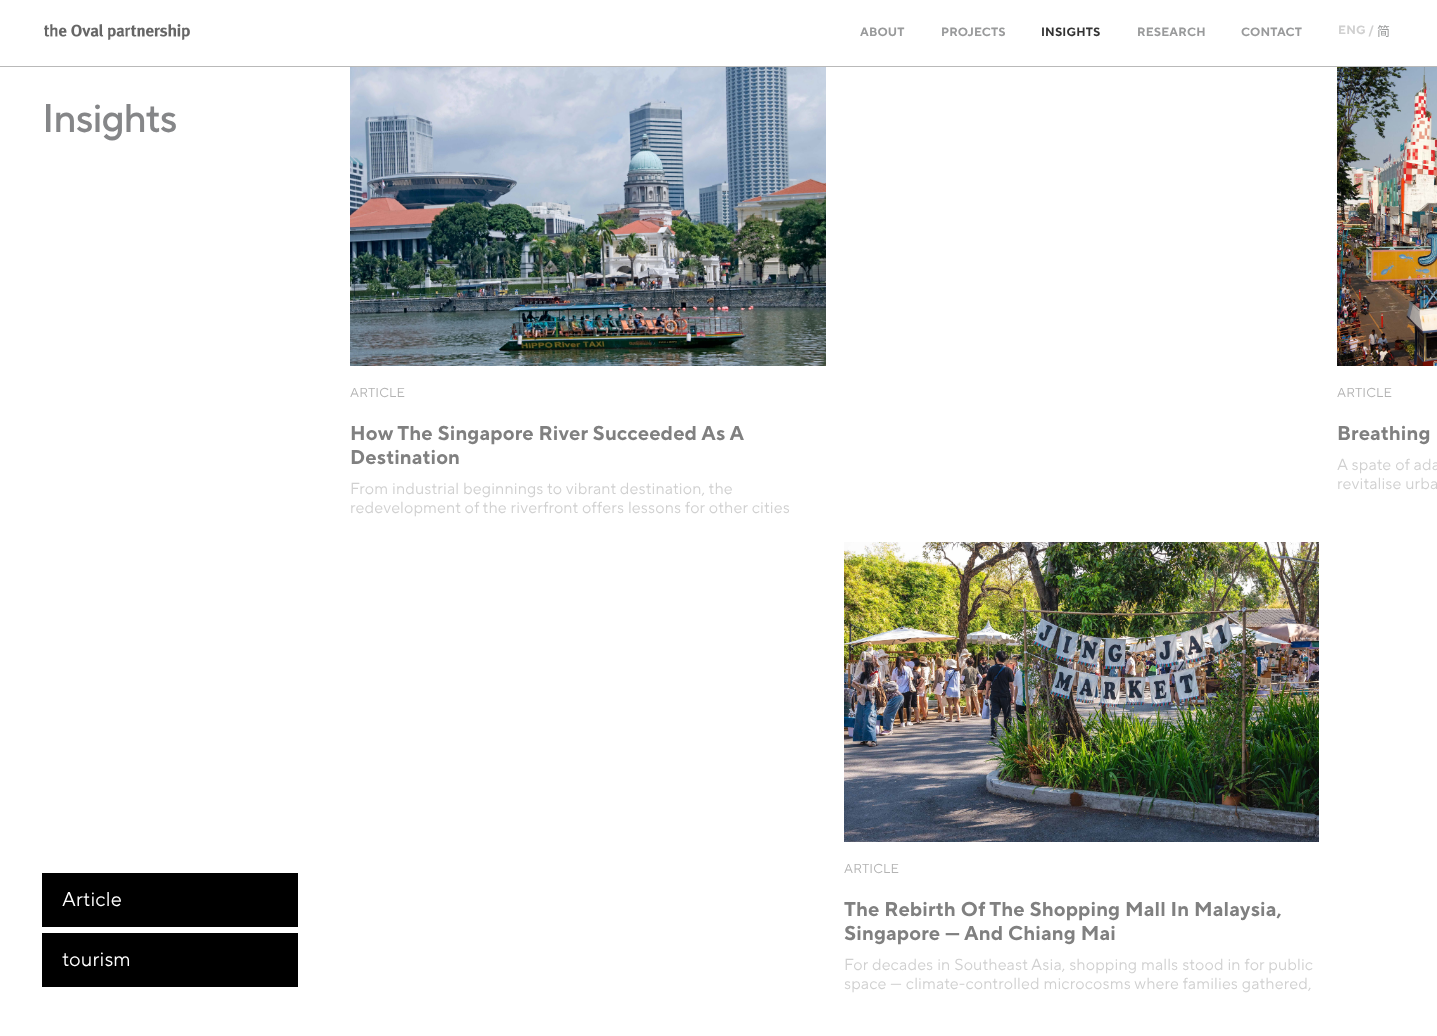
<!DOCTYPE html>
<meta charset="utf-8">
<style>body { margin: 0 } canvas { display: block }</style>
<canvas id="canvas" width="1437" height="1036"></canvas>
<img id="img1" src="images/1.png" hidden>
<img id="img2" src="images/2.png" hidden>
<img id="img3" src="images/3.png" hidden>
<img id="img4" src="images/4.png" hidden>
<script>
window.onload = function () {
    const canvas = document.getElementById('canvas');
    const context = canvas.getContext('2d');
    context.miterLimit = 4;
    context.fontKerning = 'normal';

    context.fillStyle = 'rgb(255, 255, 255)';
    context.fillRect(0, 0, 1437, 1036);
    context.fillStyle = 'rgb(185, 185, 185)';
    context.fillRect(0, 66, 1437, 1);
    context.drawImage(document.getElementById('img1'), 44, 24, 146, 16);
    context.fillStyle = 'rgb(0, 0, 0)';
    context.fillRect(42, 873, 256, 54);
    context.drawImage(document.getElementById('img2'), 350, 67, 476, 299);
    context.drawImage(document.getElementById('img3'), 1337, 67, 100, 299);
    context.drawImage(document.getElementById('img4'), 844, 542, 475, 300);
    context.fillRect(42, 933, 256, 54);
    context.letterSpacing = '0.15px';
    context.font = 'bold 12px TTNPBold';
    context.fillStyle = 'rgb(153, 154, 155)';
    context.fillText('ABOUT', 860, 36);
    context.fillText('PROJECTS', 941, 36);
    context.fillStyle = 'rgb(51, 51, 51)';
    context.fillText('INSIGHTS', 1041, 36);
    context.fillStyle = 'rgb(153, 154, 155)';
    context.fillText('RESEARCH', 1137, 36);
    context.fillText('CONTACT', 1241, 36);
    context.fillStyle = 'rgb(208, 208, 208)';
    context.fillText('ENG /', 1338, 34);
    context.font = '13px Noto Sans CJK SC';
    context.fillStyle = 'rgb(153, 154, 155)';
    context.fillText('简', 1377, 36);
    context.letterSpacing = '-1px';
    context.font = '500 40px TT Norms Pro';
    context.fillStyle = 'rgb(133, 134, 136)';
    context.fillText('Insights', 42, 132);
    context.letterSpacing = '0.15px';
    context.font = '20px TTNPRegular';
    context.fillStyle = 'rgb(255, 255, 255)';
    context.fillText('Article', 62, 906);
    context.font = '13px TTNPRegular';
    context.fillStyle = 'rgb(179, 179, 179)';
    context.fillText('ARTICLE', 350, 397);
    context.font = 'bold 20px TTNPBold';
    context.fillStyle = 'rgb(128, 128, 128)';
    context.fillText('How The Singapore River Succeeded As A', 350, 440);
    context.fillText('Destination', 350, 464);
    context.font = '16px TTNPRegular';
    context.fillStyle = 'rgb(208, 208, 208)';
    context.fillText('From industrial beginnings to vibrant destination, the', 350, 494);
    context.fillText('redevelopment of the riverfront offers lessons for other cities', 350, 513);
    context.font = '13px TTNPRegular';
    context.fillStyle = 'rgb(179, 179, 179)';
    context.fillText('ARTICLE', 1337, 397);
    context.font = 'bold 20px TTNPBold';
    context.fillStyle = 'rgb(128, 128, 128)';
    context.fillText('Breathing', 1337, 440);
    context.font = '16px TTNPRegular';
    context.fillStyle = 'rgb(208, 208, 208)';
    context.fillText('A spate of ada', 1337, 470);
    context.fillText('revitalise urba', 1337, 489);
    context.font = '13px TTNPRegular';
    context.fillStyle = 'rgb(179, 179, 179)';
    context.fillText('ARTICLE', 844, 873);
    context.save();
    context.beginPath();
    context.rect(844, 898, 475, 48);
    context.clip();
    context.font = 'bold 20px TTNPBold';
    context.fillStyle = 'rgb(128, 128, 128)';
    context.fillText('The Rebirth Of The Shopping Mall In Malaysia,', 844, 916);
    context.restore();
    context.font = 'bold 20px TTNPBold';
    context.fillStyle = 'rgb(128, 128, 128)';
    context.fillText('Singapore — And Chiang Mai', 844, 940);
    context.font = '16px TTNPRegular';
    context.fillStyle = 'rgb(208, 208, 208)';
    context.fillText('For decades in Southeast Asia, shopping malls stood in for public', 844, 970);
    context.fillText('space — climate-controlled microcosms where families gathered,', 844, 989);
    context.font = '20px TTNPRegular';
    context.fillStyle = 'rgb(255, 255, 255)';
    context.fillText('tourism', 62, 966);
};
</script>
